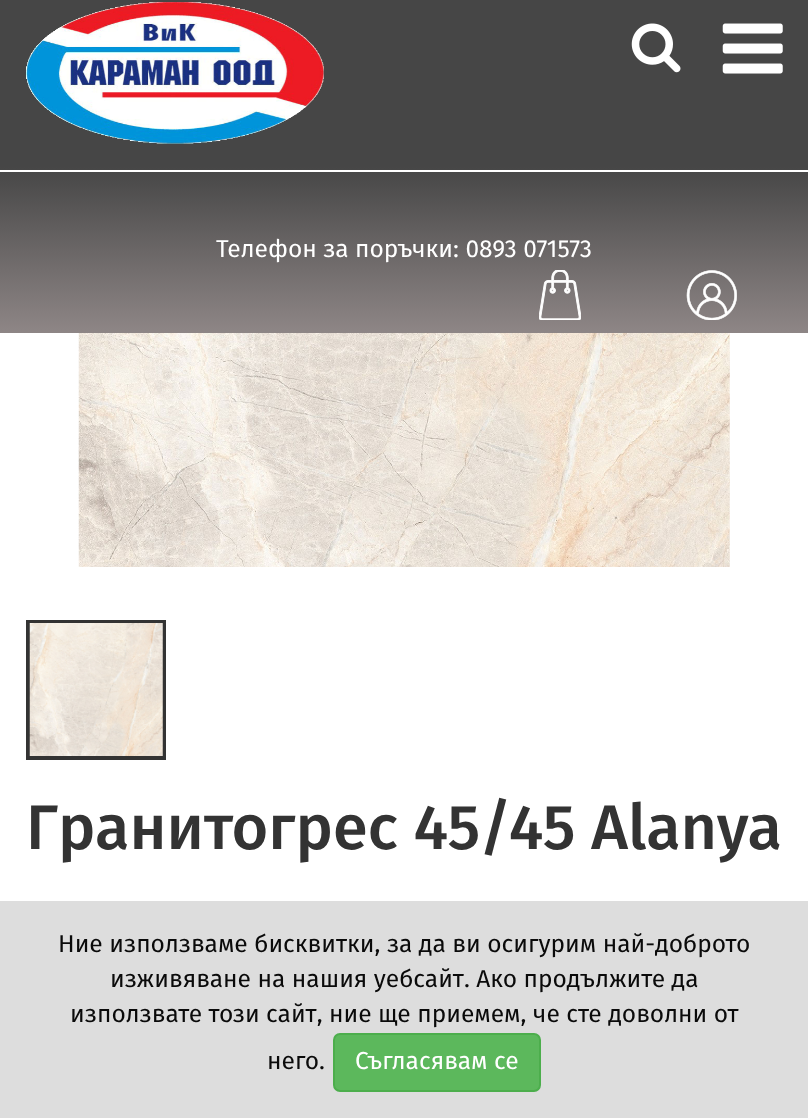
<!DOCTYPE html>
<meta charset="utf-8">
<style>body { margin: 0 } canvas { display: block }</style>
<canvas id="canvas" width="808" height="1118"></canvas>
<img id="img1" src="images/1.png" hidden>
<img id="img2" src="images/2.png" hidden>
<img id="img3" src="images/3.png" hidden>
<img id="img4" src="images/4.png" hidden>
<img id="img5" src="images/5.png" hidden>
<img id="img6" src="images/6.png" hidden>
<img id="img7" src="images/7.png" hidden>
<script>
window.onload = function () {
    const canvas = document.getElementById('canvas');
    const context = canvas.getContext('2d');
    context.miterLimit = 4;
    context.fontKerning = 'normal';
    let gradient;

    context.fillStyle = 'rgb(255, 255, 255)';
    context.fillRect(0, 0, 808, 1118);
    gradient = context.createLinearGradient(404, 0, 404, 333);
    gradient.addColorStop(0.5, 'rgb(70, 70, 70)');
    gradient.addColorStop(1, 'rgb(142, 134, 134)');
    context.fillStyle = gradient;
    context.fillRect(0, 0, 808, 333);
    context.drawImage(document.getElementById('img1'), 26, 2, 298, 142);
    context.drawImage(document.getElementById('img2'), 631, 23, 50, 50);
    context.drawImage(document.getElementById('img3'), 722, 23, 61, 51);
    context.fillStyle = 'rgb(255, 255, 255)';
    context.fillRect(0, 170, 808, 2);
    context.drawImage(document.getElementById('img4'), 539, 270, 42, 50);
    context.drawImage(document.getElementById('img5'), 686, 270, 51, 50);
    context.drawImage(document.getElementById('img6'), 78, 333, 652, 234);
    context.strokeStyle = 'rgb(51, 51, 51)';
    context.lineWidth = 4;
    context.strokeRect(28, 622, 136, 136);
    context.drawImage(document.getElementById('img7'), 29, 623, 134, 133);
    context.fillStyle = 'rgb(221, 221, 221)';
    context.fillRect(0, 901, 808, 217);
    context.fillStyle = 'rgb(92, 184, 92)';
    context.beginPath();
    context.roundRect(334, 1034, 206, 57, 6);
    context.fill();
    context.strokeStyle = 'rgb(76, 174, 76)';
    context.lineWidth = 2;
    context.stroke();
    context.font = '24.5px Fira Sans';
    context.fillStyle = 'rgb(255, 255, 255)';
    context.fillText('Телефон за поръчки: 0893 071573', 216, 257);
    context.font = '500 63px Fira Sans';
    context.fillStyle = 'rgb(51, 51, 51)';
    context.fillText('Гранитогрес 45/45 Alanya', 26, 849);
    context.font = '24.5px Fira Sans';
    context.fillStyle = 'rgb(10, 10, 10)';
    context.fillText('Ние използваме бисквитки, за да ви осигурим най-доброто', 58, 952);
    context.fillText('изживяване на нашия уебсайт. Ако продължите да', 110, 987);
    context.fillText('използвате този сайт, ние ще приемем, че сте доволни от', 70, 1022);
    context.fillText('него.', 267, 1069);
    context.fillStyle = 'rgb(255, 255, 255)';
    context.fillText('Съгласявам се', 355, 1069);
};
</script>
